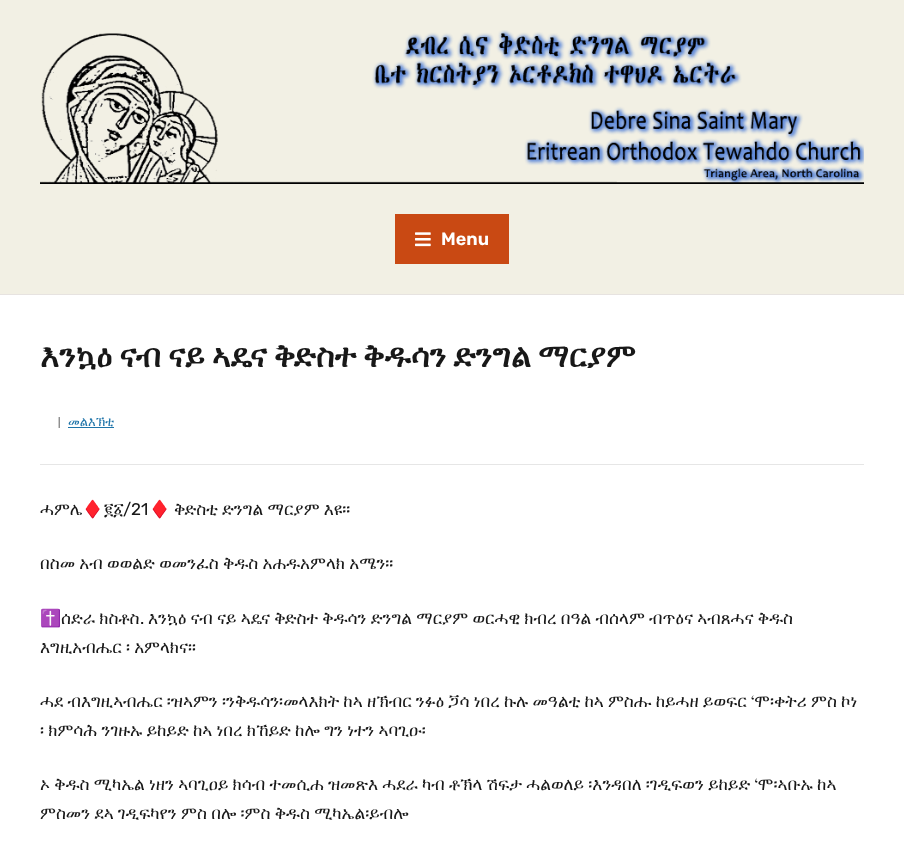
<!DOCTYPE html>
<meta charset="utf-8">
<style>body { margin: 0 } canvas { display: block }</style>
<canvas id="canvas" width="904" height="853"></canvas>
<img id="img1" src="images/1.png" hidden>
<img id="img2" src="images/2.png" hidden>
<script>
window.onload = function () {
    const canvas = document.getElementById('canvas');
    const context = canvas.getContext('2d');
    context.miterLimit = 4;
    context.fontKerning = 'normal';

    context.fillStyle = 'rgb(255, 255, 255)';
    context.fillRect(0, 0, 904, 853);
    context.fillStyle = 'rgb(242, 240, 228)';
    context.fillRect(0, 0, 904, 294);
    context.fillStyle = 'rgb(231, 227, 224)';
    context.fillRect(0, 294, 904, 1);
    context.drawImage(document.getElementById('img1'), 40, 30, 824, 154);
    context.fillStyle = 'rgb(201, 73, 19)';
    context.fillRect(395, 214, 114, 50);
    context.drawImage(document.getElementById('img2'), 415, 232, 16, 15);
    context.fillStyle = 'rgb(230, 230, 230)';
    context.fillRect(40, 464, 824, 1);
    context.fillStyle = 'rgb(30, 116, 169)';
    context.fillRect(68, 427, 46, 1);
    context.font = '600 18px Rubik';
    context.fillStyle = 'rgb(255, 255, 255)';
    context.fillText('Menu', 441, 245);
    context.wordSpacing = '-1px';
    context.font = 'bold 32px FreeSerif';
    context.fillStyle = 'rgb(24, 24, 24)';
    context.fillText('እንኳዕ ናብ ናይ ኣዴና ቅድስተ ቅዱሳን ድንግል ማርያም', 40, 367);
    context.wordSpacing = '0px';
    context.font = '10px Rubik';
    context.fillStyle = 'rgb(72, 72, 72)';
    context.fillText('|', 58, 426);
    context.font = '13px FreeSerif';
    context.fillStyle = 'rgb(30, 116, 169)';
    context.fillText('መልእኽቲ', 68, 426);
    context.font = '17px FreeSerif';
    context.fillStyle = 'rgb(24, 24, 24)';
    context.fillText('ሓምሌ', 40, 515);
    context.font = '17px Noto Color Emoji';
    context.fillText('♦️', 82, 515);
    context.font = '17px FreeSerif';
    context.fillText('፪፩', 104, 515);
    context.font = '17px Rubik';
    context.fillText('/21', 123, 515);
    context.font = '17px Noto Color Emoji';
    context.fillText('♦️', 149, 515);
    context.font = '17px FreeSerif';
    context.fillText('ቅድስቲ ድንግል ማርያም እዩ።', 174, 515);
    context.fillText('በስመ አብ ወወልድ ወመንፈስ ቅዱስ አሐዱአምላክ አሜን።', 40, 569);
    context.font = '17px Noto Color Emoji';
    context.fillText('✝️', 40, 624);
    context.font = '17px FreeSerif';
    context.fillText('ሰድራ ክስቶስ', 61, 624);
    context.font = '17px Rubik';
    context.fillText('.', 140, 624);
    context.font = '17px FreeSerif';
    context.fillText('እንኳዕ ናብ ናይ ኣዴና ቅድስተ ቅዱሳን ድንግል ማርያም ወርሓዊ ክብረ በዓል ብሰላም ብጥዕና ኣብጸሓና ቅዱስ', 148, 624);
    context.fillText('እግዚአብሔር ፡ አምላክና።', 40, 653);
    context.fillText('ሓደ ብእግዚኣብሔር ፡ዝኣምን ፡ንቅዱሳን፡መላእክት ከኣ ዘኽብር ንፉዕ ጛሳ ነበረ ኩሉ መዓልቲ ከኣ ምስሑ ከይሓዘ ይወፍር ‘ሞ፡ቀትሪ ምስ ኮነ', 40, 707);
    context.fillText('፡ ክምሳሕ ንገዙኡ ይከይድ ከኣ ነበረ ክኸይድ ከሎ ግን ነተን ኣባጊዑ፡', 40, 736);
    context.fillText('ኦ ቅዱስ ሚካኤል ነዘን ኣባጊዐይ ክሳብ ተመሲሐ ዝመጽእ ሓደራ ካብ ቶኽላ ሽፍታ ሓልወለይ ፡እንዳበለ ፡ገዲፍወን ይከይድ ‘ሞ፡ኣቡኡ ከኣ', 40, 790);
    context.fillText('ምስመን ደኣ ገዲፍካየን ምስ በሎ ፡ምስ ቅዱስ ሚካኤል፡ይብሎ', 40, 819);
};
</script>
